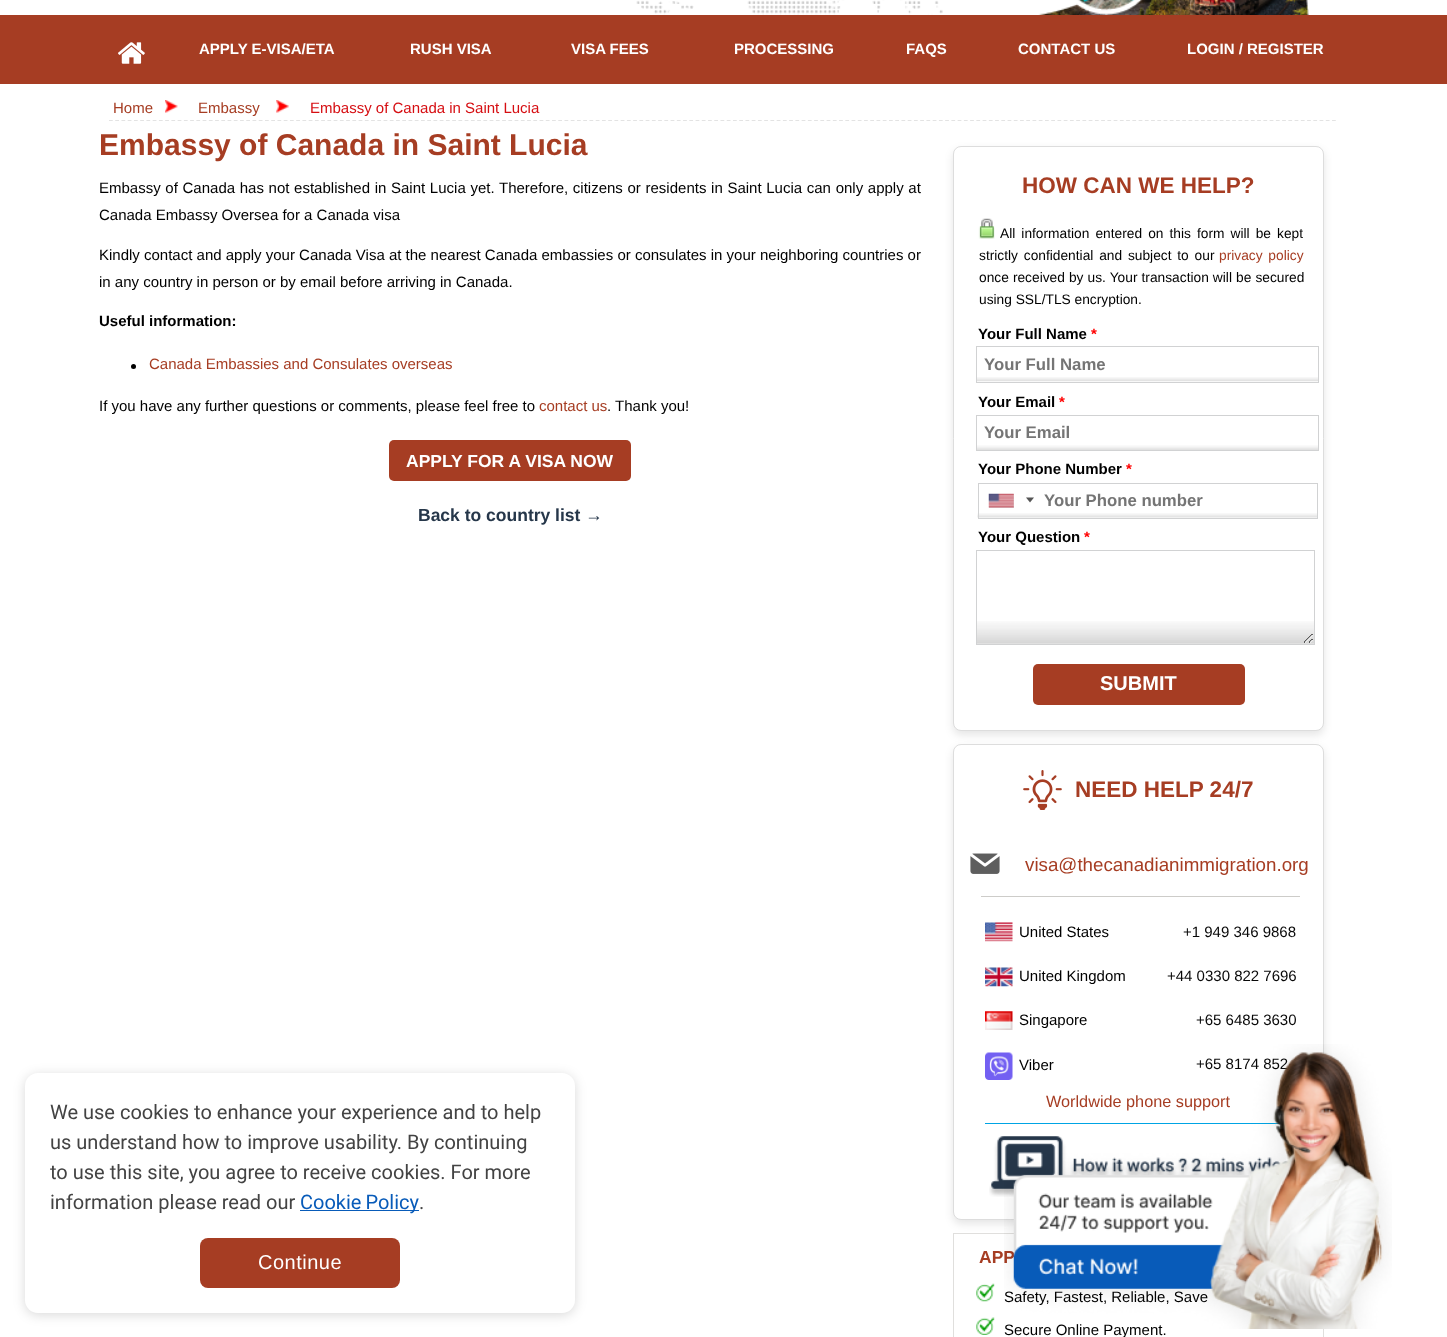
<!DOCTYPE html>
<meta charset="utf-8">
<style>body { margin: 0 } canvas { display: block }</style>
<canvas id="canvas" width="1447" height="1337"></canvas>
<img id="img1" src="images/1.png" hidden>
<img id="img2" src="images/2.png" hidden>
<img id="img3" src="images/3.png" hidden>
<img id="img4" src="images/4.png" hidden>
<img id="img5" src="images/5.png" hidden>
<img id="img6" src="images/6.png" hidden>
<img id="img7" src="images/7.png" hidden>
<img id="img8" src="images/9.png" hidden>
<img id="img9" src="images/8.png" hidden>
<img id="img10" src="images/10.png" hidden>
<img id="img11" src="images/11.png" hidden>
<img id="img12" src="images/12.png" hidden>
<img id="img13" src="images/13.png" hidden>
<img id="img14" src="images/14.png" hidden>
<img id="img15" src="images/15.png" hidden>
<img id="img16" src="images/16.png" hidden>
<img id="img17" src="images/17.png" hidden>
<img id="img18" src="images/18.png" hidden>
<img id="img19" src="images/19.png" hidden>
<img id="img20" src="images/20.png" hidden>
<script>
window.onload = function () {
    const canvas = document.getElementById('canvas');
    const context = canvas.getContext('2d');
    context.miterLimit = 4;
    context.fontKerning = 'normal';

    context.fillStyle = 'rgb(255, 255, 255)';
    context.fillRect(0, 0, 1447, 1337);
    context.drawImage(document.getElementById('img1'), 636, 0, 673, 15);
    context.fillStyle = 'rgb(166, 61, 35)';
    context.fillRect(0, 15, 1447, 69);
    context.drawImage(document.getElementById('img2'), 118, 42, 27, 22);
    context.beginPath();
    context.moveTo(109, 120.5);
    context.lineTo(1336, 120.5);
    context.strokeStyle = 'rgb(227, 227, 227)';
    context.lineWidth = 1.2;
    context.setLineDash([3.75, 2.49]);
    context.stroke();
    context.drawImage(document.getElementById('img3'), 165, 100, 13, 13);
    context.drawImage(document.getElementById('img4'), 276, 100, 13, 13);
    context.fillStyle = 'rgb(0, 0, 0)';
    context.beginPath();
    context.arc(133.5, 366.5, 2.5, 0, 2 * Math.PI);
    context.fill();
    context.fillStyle = 'rgb(166, 61, 35)';
    context.beginPath();
    context.roundRect(389, 440, 242, 41, 5);
    context.fill();
    context.fillStyle = 'rgba(0, 0, 0, 0.1)';
    context.filter = 'blur(4.5px)';
    context.beginPath();
    context.roundRect(953, 150, 371, 585, 8);
    context.fill();
    context.filter = 'none';
    context.fillStyle = 'rgb(255, 255, 255)';
    context.beginPath();
    context.roundRect(953.5, 146.5, 370, 584, 7.5);
    context.fill();
    context.strokeStyle = 'rgb(221, 221, 221)';
    context.lineWidth = 1;
    context.setLineDash([]);
    context.stroke();
    context.drawImage(document.getElementById('img5'), 978, 218, 17, 21);
    context.drawImage(document.getElementById('img6'), 977, 377, 341, 5);
    context.strokeStyle = 'rgb(209, 210, 211)';
    context.strokeRect(976.5, 346.5, 342, 36);
    context.drawImage(document.getElementById('img7'), 977, 445, 341, 5);
    context.strokeRect(976.5, 415.5, 342, 35);
    context.drawImage(document.getElementById('img8'), 977, 513, 340, 5);
    context.strokeRect(978.5, 483.5, 339, 35);
    context.fillStyle = 'rgb(136, 136, 136)';
    context.filter = 'blur(0.5px)';
    context.beginPath();
    context.rect(989, 494, 25, 14);
    context.fill();
    context.filter = 'none';
    context.fillStyle = 'rgb(219, 219, 219)';
    context.fillRect(989, 494, 25, 14);
    context.drawImage(document.getElementById('img9'), 988, 493, 26, 15);
    context.fillStyle = 'rgb(85, 85, 85)';
    context.beginPath();
    context.moveTo(1026, 497.5);
    context.lineTo(1034, 497.5);
    context.lineTo(1030, 502.5);
    context.closePath();
    context.fill();
    context.drawImage(document.getElementById('img10'), 977, 621, 337, 23);
    context.strokeRect(976.5, 550.5, 338, 94);
    context.fillStyle = 'rgb(166, 61, 35)';
    context.beginPath();
    context.roundRect(1033, 664, 212, 41, 5);
    context.fill();
    context.fillStyle = 'rgba(0, 0, 0, 0.1)';
    context.filter = 'blur(4.5px)';
    context.beginPath();
    context.roundRect(953, 748, 371, 476, 8);
    context.fill();
    context.filter = 'none';
    context.fillStyle = 'rgb(255, 255, 255)';
    context.beginPath();
    context.roundRect(953.5, 744.5, 370, 475, 7.5);
    context.fill();
    context.strokeStyle = 'rgb(221, 221, 221)';
    context.stroke();
    context.drawImage(document.getElementById('img11'), 1023, 770, 39, 40);
    context.drawImage(document.getElementById('img12'), 970, 853, 30, 21);
    context.fillStyle = 'rgb(205, 204, 201)';
    context.fillRect(981, 896, 319, 1);
    context.drawImage(document.getElementById('img13'), 985, 922, 28, 20);
    context.drawImage(document.getElementById('img14'), 985, 967, 28, 20);
    context.drawImage(document.getElementById('img15'), 985, 1011, 28, 19);
    context.drawImage(document.getElementById('img16'), 985, 1052, 28, 28);
    context.fillStyle = 'rgb(0, 164, 228)';
    context.fillRect(985, 1123, 296, 1);
    context.drawImage(document.getElementById('img17'), 989, 1136, 300, 61);
    context.strokeStyle = 'rgb(224, 223, 221)';
    context.strokeRect(953.5, 1233.5, 370, 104);
    context.drawImage(document.getElementById('img18'), 976, 1283, 19, 19);
    context.drawImage(document.getElementById('img19'), 976, 1317, 19, 18);
    context.fillStyle = 'rgba(0, 0, 0, 0.15)';
    context.filter = 'blur(6px)';
    context.beginPath();
    context.roundRect(25, 1075, 550, 240, 13);
    context.fill();
    context.filter = 'none';
    context.fillStyle = 'rgb(255, 255, 255)';
    context.beginPath();
    context.roundRect(25, 1073, 550, 240, 13);
    context.fill();
    context.fillStyle = 'rgb(8, 91, 185)';
    context.fillRect(300, 1210, 119, 1);
    context.fillStyle = 'rgb(166, 61, 35)';
    context.beginPath();
    context.roundRect(200, 1238, 200, 50, 8);
    context.fill();
    context.font = 'bold 15px Liberation Sans';
    context.fillStyle = 'rgb(255, 255, 255)';
    context.fillText('APPLY E-VISA/ETA', 199, 54);
    context.fillText('RUSH VISA', 410, 54);
    context.fillText('VISA FEES', 571, 54);
    context.fillText('PROCESSING', 734, 54);
    context.fillText('FAQS', 906, 54);
    context.fillText('CONTACT US', 1018, 54);
    context.fillText('LOGIN / REGISTER', 1187, 54);
    context.font = '15px Liberation Sans';
    context.fillStyle = 'rgb(166, 61, 35)';
    context.fillText('Home', 113, 113);
    context.fillText('Embassy', 198, 113);
    context.fillStyle = 'rgb(214, 14, 18)';
    context.fillText('Embassy of Canada in Saint Lucia', 310, 113);
    context.font = 'bold 30px Liberation Sans';
    context.fillStyle = 'rgb(166, 61, 35)';
    context.fillText('Embassy of Canada in Saint Lucia', 99, 155);
    context.wordSpacing = '0.5px';
    context.font = '15px Liberation Sans';
    context.fillStyle = 'rgb(0, 0, 0)';
    context.fillText('Embassy of Canada has not established in Saint Lucia yet. Therefore, citizens or residents in Saint Lucia can only apply at', 99, 193);
    context.wordSpacing = '0px';
    context.fillText('Canada Embassy Oversea for a Canada visa', 99, 220);
    context.fillText('Kindly contact and apply your Canada Visa at the nearest Canada embassies or consulates in your neighboring countries or', 99, 260);
    context.fillText('in any country in person or by email before arriving in Canada.', 99, 287);
    context.font = 'bold 15px Liberation Sans';
    context.fillText('Useful information:', 99, 326);
    context.font = '15px Liberation Sans';
    context.fillStyle = 'rgb(166, 61, 35)';
    context.fillText('Canada Embassies and Consulates overseas', 149, 369);
    context.fillStyle = 'rgb(0, 0, 0)';
    context.fillText('If you have any further questions or comments, please feel free to', 99, 411);
    context.fillStyle = 'rgb(166, 61, 35)';
    context.fillText('contact us', 539, 411);
    context.fillStyle = 'rgb(0, 0, 0)';
    context.fillText('. Thank you!', 607, 411);
    context.font = 'bold 17.5px Liberation Sans';
    context.fillStyle = 'rgb(255, 255, 255)';
    context.fillText('APPLY FOR A VISA NOW', 406, 467);
    context.fillStyle = 'rgb(38, 55, 74)';
    context.fillText('Back to country list →', 418, 521);
    context.font = 'bold 22.5px Liberation Sans';
    context.fillStyle = 'rgb(166, 61, 35)';
    context.fillText('HOW CAN WE HELP?', 1022, 193);
    context.wordSpacing = '2.25px';
    context.font = '13.75px Liberation Sans';
    context.fillStyle = 'rgb(0, 0, 0)';
    context.fillText('All information entered on this form will be kept', 1000, 238);
    context.wordSpacing = '2px';
    context.fillText('strictly confidential and subject to our', 979, 260);
    context.fillStyle = 'rgb(166, 61, 35)';
    context.fillText('privacy policy', 1219, 260);
    context.wordSpacing = '0.25px';
    context.fillStyle = 'rgb(0, 0, 0)';
    context.fillText('once received by us. Your transaction will be secured', 979, 282);
    context.wordSpacing = '0px';
    context.fillText('using SSL/TLS encryption.', 979, 304);
    context.font = 'bold 15px Liberation Sans';
    context.fillText('Your Full Name', 978, 339);
    context.fillStyle = 'rgb(255, 0, 0)';
    context.fillText('*', 1091, 339);
    context.font = 'bold 16.75px Liberation Sans';
    context.fillStyle = 'rgb(117, 117, 117)';
    context.fillText('Your Full Name', 984, 370);
    context.font = 'bold 15px Liberation Sans';
    context.fillStyle = 'rgb(0, 0, 0)';
    context.fillText('Your Email', 978, 407);
    context.fillStyle = 'rgb(255, 0, 0)';
    context.fillText('*', 1059, 407);
    context.font = 'bold 16.75px Liberation Sans';
    context.fillStyle = 'rgb(117, 117, 117)';
    context.fillText('Your Email', 984, 438);
    context.font = 'bold 15px Liberation Sans';
    context.fillStyle = 'rgb(0, 0, 0)';
    context.fillText('Your Phone Number', 978, 474);
    context.fillStyle = 'rgb(255, 0, 0)';
    context.fillText('*', 1126, 474);
    context.font = 'bold 16.75px Liberation Sans';
    context.fillStyle = 'rgb(117, 117, 117)';
    context.fillText('Your Phone number', 1044, 506);
    context.font = 'bold 15px Liberation Sans';
    context.fillStyle = 'rgb(0, 0, 0)';
    context.fillText('Your Question', 978, 542);
    context.fillStyle = 'rgb(255, 0, 0)';
    context.fillText('*', 1084, 542);
    context.font = 'bold 20px Liberation Sans';
    context.fillStyle = 'rgb(255, 255, 255)';
    context.fillText('SUBMIT', 1100, 690);
    context.font = 'bold 22.5px Liberation Sans';
    context.fillStyle = 'rgb(166, 61, 35)';
    context.fillText('NEED HELP 24/7', 1075, 797);
    context.font = '18.75px Liberation Sans';
    context.fillText('visa@thecanadianimmigration.org', 1025, 871);
    context.font = '15px Liberation Sans';
    context.fillStyle = 'rgb(0, 0, 0)';
    context.fillText('United States', 1019, 937);
    context.fillStyle = 'rgb(8, 8, 8)';
    context.fillText('+1 949 346 9868', 1183, 937);
    context.fillStyle = 'rgb(0, 0, 0)';
    context.fillText('United Kingdom', 1019, 981);
    context.fillStyle = 'rgb(8, 8, 8)';
    context.fillText('+44 0330 822 7696', 1167, 981);
    context.fillStyle = 'rgb(0, 0, 0)';
    context.fillText('Singapore', 1019, 1025);
    context.fillStyle = 'rgb(8, 8, 8)';
    context.fillText('+65 6485 3630', 1196, 1025);
    context.fillStyle = 'rgb(0, 0, 0)';
    context.fillText('Viber', 1019, 1070);
    context.fillStyle = 'rgb(8, 8, 8)';
    context.fillText('+65 8174 852', 1196, 1069);
    context.font = '16.25px Liberation Sans';
    context.fillStyle = 'rgb(166, 61, 35)';
    context.fillText('Worldwide phone support', 1046, 1107);
    context.font = 'bold 17.5px Liberation Sans';
    context.fillText('APP', 979, 1263);
    context.font = '15px Liberation Sans';
    context.fillStyle = 'rgb(0, 0, 0)';
    context.fillText('Safety, Fastest, Reliable, Save', 1004, 1302);
    context.fillText('Secure Online Payment.', 1004, 1335);
    context.font = '20px Roboto';
    context.fillStyle = 'rgb(67, 67, 67)';
    context.fillText('We use cookies to enhance your experience and to help', 50, 1119);
    context.fillText('us understand how to improve usability. By continuing', 50, 1149);
    context.fillText('to use this site, you agree to receive cookies. For more', 50, 1179);
    context.fillText('information please read our', 50, 1209);
    context.wordSpacing = '-1px';
    context.fillStyle = 'rgb(8, 91, 185)';
    context.fillText('Cookie Policy', 300, 1209);
    context.wordSpacing = '0px';
    context.fillStyle = 'rgb(67, 67, 67)';
    context.fillText('.', 419, 1209);
    context.letterSpacing = '0.5px';
    context.font = '20px Liberation Sans';
    context.fillStyle = 'rgb(255, 255, 255)';
    context.fillText('Continue', 258, 1269);
    context.drawImage(document.getElementById('img20'), 1004, 1044, 388, 285);
};
</script>
